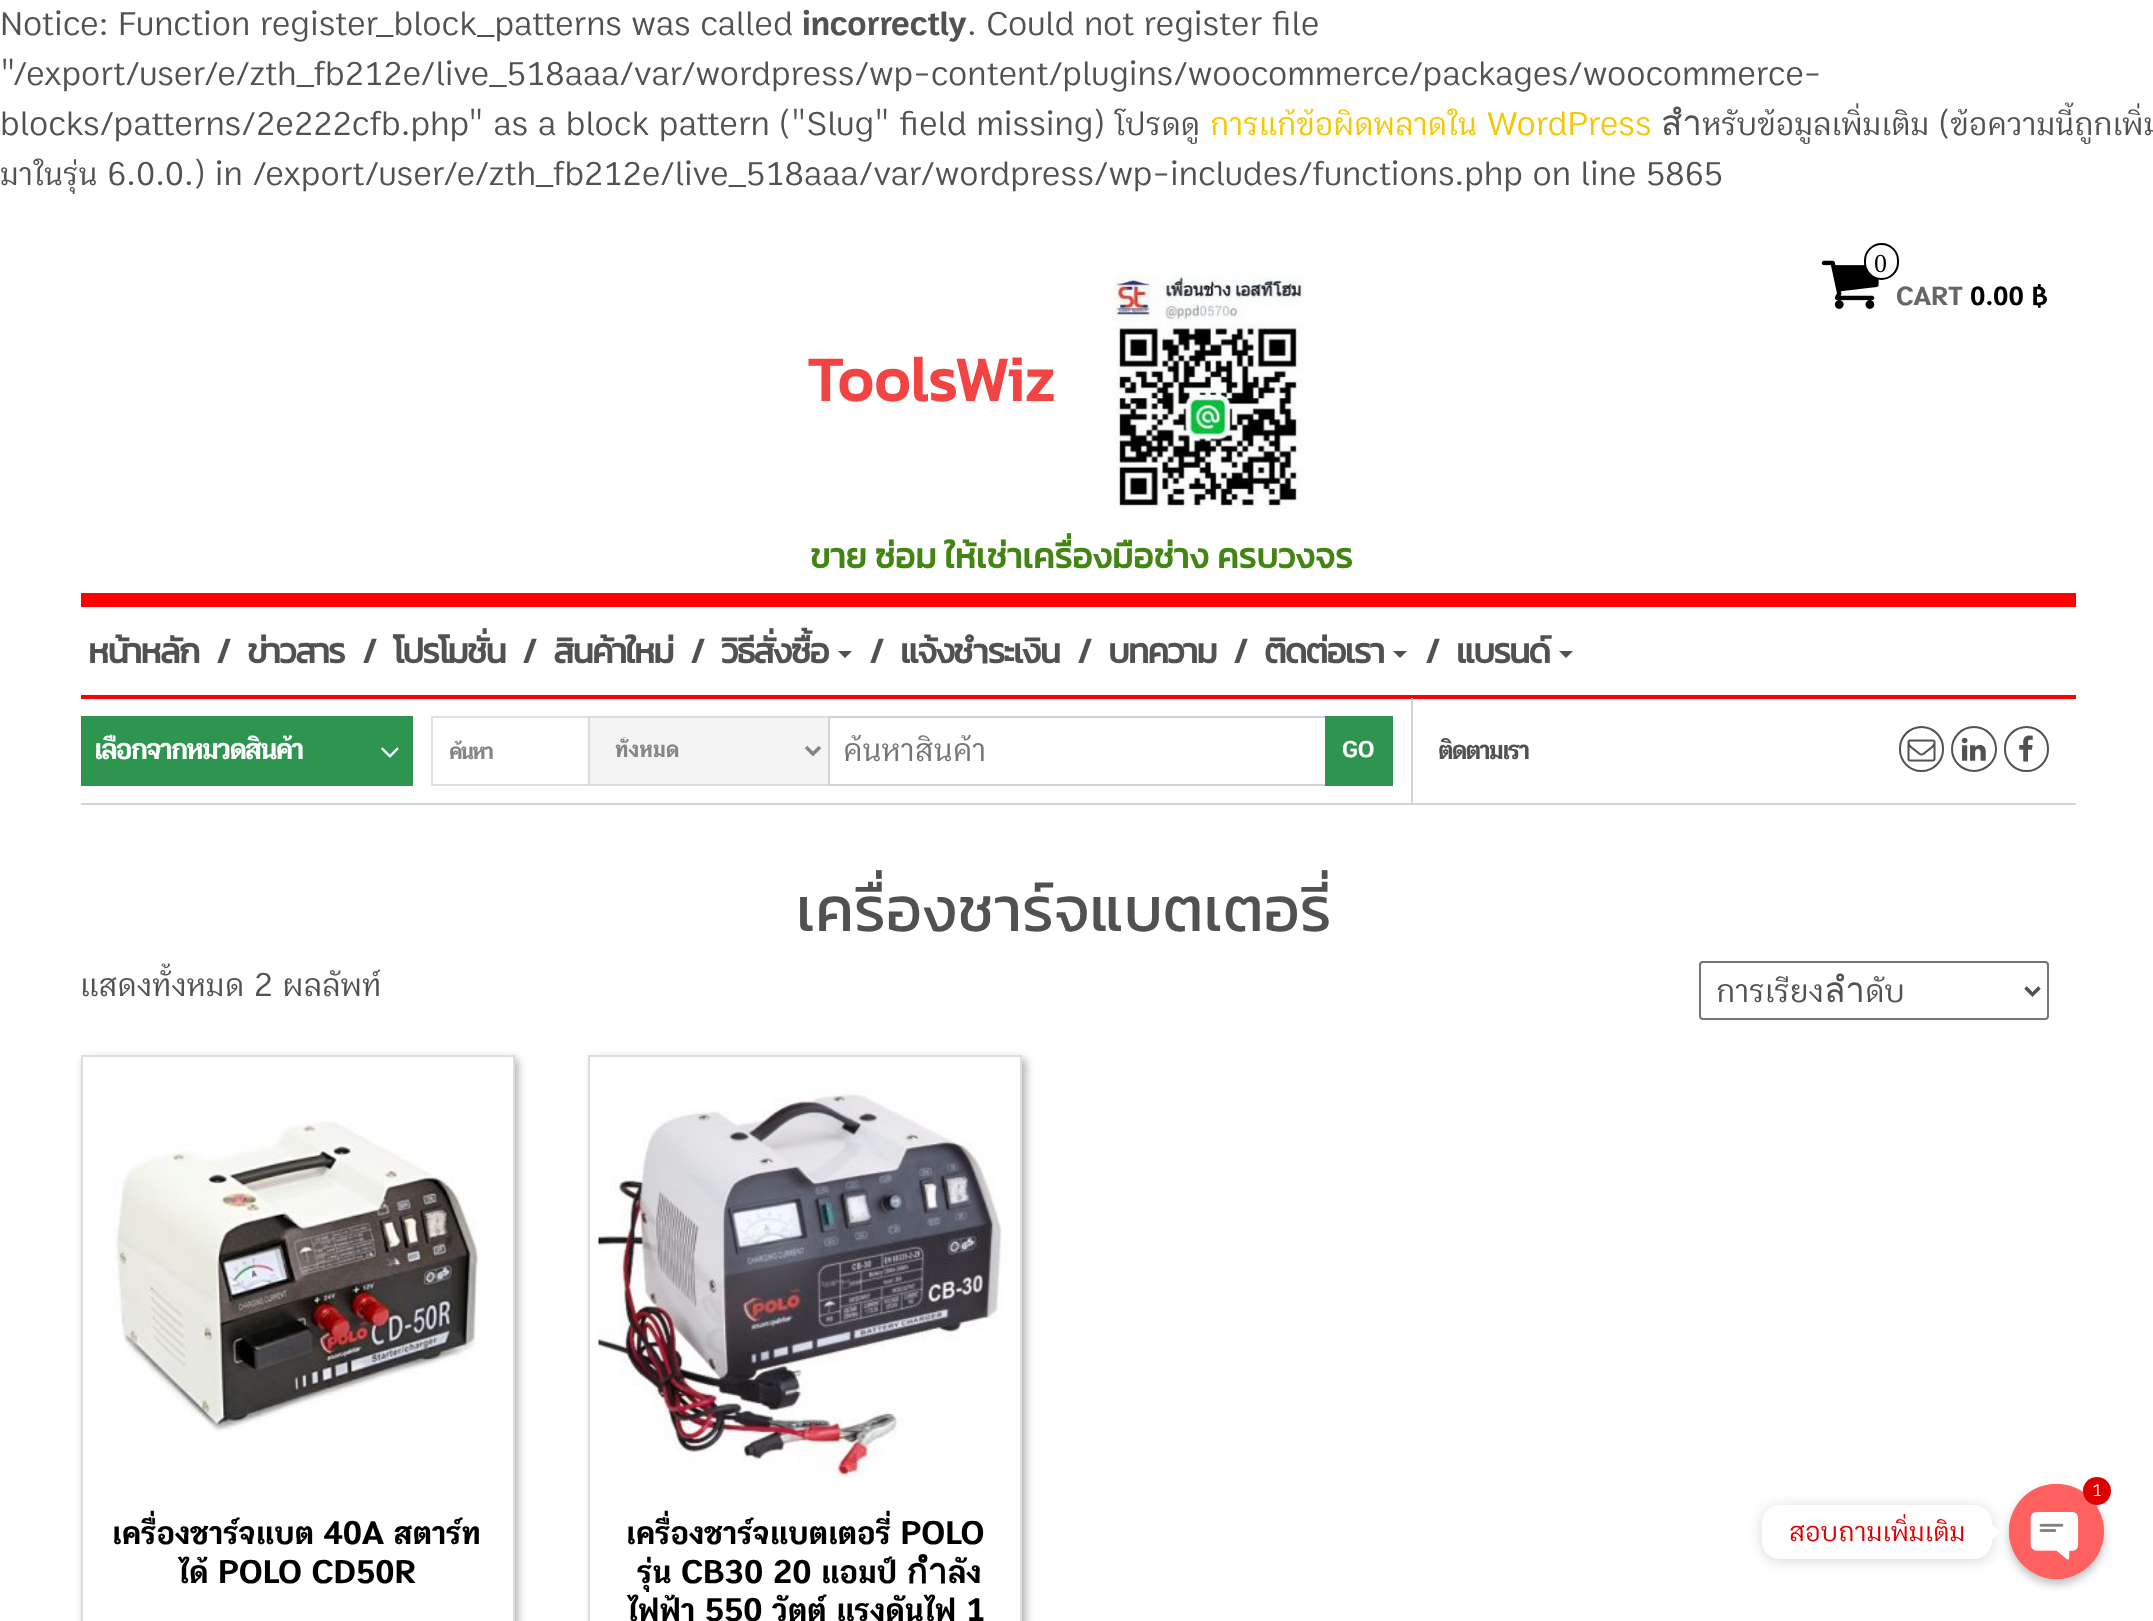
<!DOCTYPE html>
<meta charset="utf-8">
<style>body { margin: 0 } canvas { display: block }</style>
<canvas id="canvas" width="2153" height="1621"></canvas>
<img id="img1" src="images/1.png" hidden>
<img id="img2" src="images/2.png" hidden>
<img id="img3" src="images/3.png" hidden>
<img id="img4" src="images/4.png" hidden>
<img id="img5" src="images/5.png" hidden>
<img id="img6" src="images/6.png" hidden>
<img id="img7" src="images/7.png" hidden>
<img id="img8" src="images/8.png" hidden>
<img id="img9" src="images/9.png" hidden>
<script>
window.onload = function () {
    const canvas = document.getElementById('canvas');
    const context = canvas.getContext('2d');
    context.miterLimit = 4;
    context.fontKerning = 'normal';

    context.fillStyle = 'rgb(255, 255, 255)';
    context.fillRect(0, 0, 2153, 1621);
    context.drawImage(document.getElementById('img1'), 1821, 260, 58, 49);
    context.beginPath();
    context.roundRect(1865, 244, 33, 35, 16.5);
    context.fill();
    context.strokeStyle = 'rgb(0, 0, 0)';
    context.lineWidth = 2;
    context.stroke();
    context.drawImage(document.getElementById('img2'), 1110, 267, 194, 242);
    context.fillStyle = 'rgb(255, 0, 0)';
    context.fillRect(81, 593, 1995, 14);
    context.fillRect(81, 695, 1995, 4);
    context.fillStyle = 'rgb(81, 81, 81)';
    context.beginPath();
    context.moveTo(838, 651);
    context.lineTo(852, 651);
    context.lineTo(845, 658);
    context.closePath();
    context.fill();
    context.beginPath();
    context.moveTo(1393, 651);
    context.lineTo(1407, 651);
    context.lineTo(1400, 658);
    context.closePath();
    context.fill();
    context.beginPath();
    context.moveTo(1559, 651);
    context.lineTo(1573, 651);
    context.lineTo(1566, 658);
    context.closePath();
    context.fill();
    context.fillStyle = 'rgb(211, 211, 211)';
    context.fillRect(81, 803, 1995, 2);
    context.fillStyle = 'rgb(45, 149, 79)';
    context.fillRect(81, 716, 332, 70);
    context.drawImage(document.getElementById('img3'), 381, 747, 18, 11);
    context.strokeStyle = 'rgb(224, 224, 224)';
    context.strokeRect(432, 717, 157, 68);
    context.fillStyle = 'rgba(239, 239, 239, 0.7)';
    context.fillRect(588, 716, 240, 70);
    context.strokeStyle = 'rgba(211, 211, 211, 0.7)';
    context.strokeRect(589, 717, 240, 68);
    context.beginPath();
    context.moveTo(806, 747);
    context.lineTo(813, 754);
    context.lineTo(820, 747);
    context.strokeStyle = 'rgb(133, 133, 133)';
    context.lineWidth = 3.5;
    context.stroke();
    context.strokeStyle = 'rgb(211, 211, 211)';
    context.lineWidth = 2;
    context.strokeRect(829, 717, 558, 68);
    context.fillStyle = 'rgb(45, 149, 79)';
    context.fillRect(1325, 716, 68, 70);
    context.fillStyle = 'rgb(211, 211, 211)';
    context.fillRect(1411, 698, 2, 105);
    context.beginPath();
    context.roundRect(1900, 727, 43, 44, 21.5);
    context.strokeStyle = 'rgb(81, 81, 81)';
    context.stroke();
    context.drawImage(document.getElementById('img4'), 1907, 739, 29, 23);
    context.beginPath();
    context.arc(1974, 749, 22, 0, 2 * Math.PI);
    context.stroke();
    context.drawImage(document.getElementById('img5'), 1961, 737, 25, 24);
    context.beginPath();
    context.roundRect(2005, 727, 43, 44, 21.5);
    context.stroke();
    context.drawImage(document.getElementById('img6'), 2019, 735, 14, 27);
    context.beginPath();
    context.roundRect(1700, 962, 348, 57, 3);
    context.strokeStyle = 'rgb(118, 118, 118)';
    context.stroke();
    context.beginPath();
    context.moveTo(2025.5, 987.5);
    context.lineTo(2032.5, 994.5);
    context.lineTo(2039.5, 987.5);
    context.strokeStyle = 'rgb(81, 81, 81)';
    context.lineWidth = 3.5;
    context.stroke();
    context.save();
    context.beginPath();
    context.moveTo(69, 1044);
    context.lineTo(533, 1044);
    context.lineTo(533, 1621);
    context.lineTo(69, 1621);
    context.closePath();
    context.moveTo(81, 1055);
    context.lineTo(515, 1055);
    context.lineTo(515, 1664);
    context.lineTo(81, 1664);
    context.closePath();
    context.clip('evenodd');
    context.fillStyle = 'rgba(0, 0, 0, 0.3)';
    context.filter = 'blur(4.5px)';
    context.beginPath();
    context.rect(84, 1059, 434, 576);
    context.fill();
    context.filter = 'none';
    context.restore();
    context.strokeStyle = 'rgba(0, 0, 0, 0.13)';
    context.lineWidth = 2;
    context.strokeRect(82, 1056, 432, 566);
    context.drawImage(document.getElementById('img7'), 113, 1121, 369, 311);
    context.save();
    context.beginPath();
    context.moveTo(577, 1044);
    context.lineTo(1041, 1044);
    context.lineTo(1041, 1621);
    context.lineTo(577, 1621);
    context.closePath();
    context.moveTo(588, 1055);
    context.lineTo(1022, 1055);
    context.lineTo(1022, 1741);
    context.lineTo(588, 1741);
    context.closePath();
    context.clip('evenodd');
    context.fillStyle = 'rgba(0, 0, 0, 0.3)';
    context.filter = 'blur(4.5px)';
    context.beginPath();
    context.rect(592, 1059, 434, 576);
    context.fill();
    context.filter = 'none';
    context.restore();
    context.strokeRect(589, 1056, 432, 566);
    context.drawImage(document.getElementById('img8'), 598, 1088, 404, 391);
    context.fillStyle = 'rgba(0, 0, 0, 0.15)';
    context.filter = 'blur(7px)';
    context.beginPath();
    context.roundRect(1762, 1507, 230, 54, 18);
    context.fill();
    context.filter = 'none';
    context.fillStyle = 'rgb(255, 255, 255)';
    context.beginPath();
    context.roundRect(1762, 1505, 230, 54, 18);
    context.fill();
    context.beginPath();
    context.moveTo(1991.5, 1541);
    context.lineTo(1991.5, 1523.5);
    context.lineTo(2000, 1532);
    context.closePath();
    context.fill();
    context.fillStyle = 'rgba(0, 0, 0, 0.25)';
    context.filter = 'blur(5px)';
    context.beginPath();
    context.roundRect(2009, 1489, 95, 95, 47.5);
    context.fill();
    context.filter = 'none';
    context.fillStyle = 'rgb(255, 96, 96)';
    context.beginPath();
    context.arc(2056.5, 1531.5, 47.5, 0, 2 * Math.PI);
    context.fill();
    context.drawImage(document.getElementById('img9'), 2009, 1484, 72, 76);
    context.fillStyle = 'rgb(221, 0, 0)';
    context.beginPath();
    context.arc(2097, 1491, 14, 0, 2 * Math.PI);
    context.fill();
    context.font = '35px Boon';
    context.fillStyle = 'rgb(81, 81, 81)';
    context.fillText('Notice: Function register_block_patterns was called', 0, 35);
    context.font = 'bold 35px Boon';
    context.fillText('incorrectly', 802, 35);
    context.font = '35px Boon';
    context.fillText('. Could not register file', 967, 35);
    context.fillText('"/export/user/e/zth_fb212e/live_518aaa/var/wordpress/wp-content/plugins/woocommerce/packages/woocommerce-', 0, 85);
    context.fillText('blocks/patterns/2e222cfb.php" as a block pattern ("Slug" field missing) โปรดดู', 0, 135);
    context.fillStyle = 'rgb(244, 199, 0)';
    context.fillText('การแก้ข้อผิดพลาดใน WordPress', 1210, 135);
    context.fillStyle = 'rgb(81, 81, 81)';
    context.fillText('สำหรับข้อมูลเพิ่มเติม (ข้อความนี้ถูกเพิ่ม', 1661, 135);
    context.fillText('มาในรุ่น 6.0.0.) in /export/user/e/zth_fb212e/live_518aaa/var/wordpress/wp-includes/functions.php on line 5865', 0, 185);
    context.font = '26px Liberation Serif';
    context.fillStyle = 'rgb(0, 0, 0)';
    context.fillText('0', 1874, 272);
    context.font = 'bold 28px Boon';
    context.fillStyle = 'rgb(102, 102, 102)';
    context.fillText('CART', 1896, 305);
    context.fillStyle = 'rgb(0, 0, 0)';
    context.fillText('0.00 ฿', 1970, 305);
    context.font = 'bold 63px Kanit';
    context.fillStyle = 'rgb(243, 68, 68)';
    context.fillText('ToolsWiz', 807, 401);
    context.font = 'bold 35px Kanit';
    context.fillStyle = 'rgb(66, 133, 19)';
    context.fillText('ขาย ซ่อม ให้เช่าเครื่องมือช่าง ครบวงจร', 810, 568);
    context.letterSpacing = '-1.75px';
    context.fillStyle = 'rgb(81, 81, 81)';
    context.fillText('หน้าหลัก', 88, 663);
    context.fillText('/', 216, 663);
    context.fillText('ข่าวสาร', 247, 663);
    context.fillText('/', 362, 663);
    context.fillText('โปรโมชั่น', 393, 663);
    context.fillText('/', 522, 663);
    context.fillText('สินค้าใหม่', 553, 663);
    context.fillText('/', 690, 663);
    context.fillText('วิธีสั่งซื้อ', 721, 663);
    context.fillText('/', 869, 663);
    context.fillText('แจ้งชำระเงิน', 900, 663);
    context.fillText('/', 1077, 663);
    context.fillText('บทความ', 1108, 663);
    context.fillText('/', 1233, 663);
    context.fillText('ติดต่อเรา', 1264, 663);
    context.fillText('/', 1425, 663);
    context.fillText('แบรนด์', 1456, 663);
    context.font = 'bold 31.5px Boon';
    context.fillStyle = 'rgb(255, 255, 255)';
    context.fillText('เลือกจากหมวดสินค้า', 94, 759);
    context.font = 'bold 24.5px Boon';
    context.fillStyle = 'rgb(133, 133, 133)';
    context.fillText('ค้นหา', 449, 759);
    context.save();
    context.beginPath();
    context.rect(614, 737, 168, 28);
    context.clip();
    context.letterSpacing = '0px';
    context.fillText('ทั้งหมด', 615, 757);
    context.restore();
    context.save();
    context.beginPath();
    context.rect(844, 732, 528, 38);
    context.clip();
    context.letterSpacing = '0px';
    context.font = '35px Boon';
    context.fillStyle = 'rgb(117, 117, 117)';
    context.fillText('ค้นหาสินค้า', 843, 761);
    context.restore();
    context.letterSpacing = '0px';
    context.fillStyle = 'rgb(255, 255, 255)';
    context.fillText('GO', 1342, 757);
    context.letterSpacing = '-1.75px';
    context.font = 'bold 28px Boon';
    context.fillStyle = 'rgb(81, 81, 81)';
    context.fillText('ติดตามเรา', 1438, 759);
    context.letterSpacing = '0px';
    context.font = '63px Kanit';
    context.fillText('เครื่องชาร์จแบตเตอรี่', 796, 931);
    context.font = '35px Boon';
    context.fillText('แสดงทั้งหมด 2 ผลลัพท์', 80, 996);
    context.fillText('การเรียงลำดับ', 1716, 1002);
    context.font = 'bold 35px Boon';
    context.fillStyle = 'rgb(0, 0, 0)';
    context.fillText('เครื่องชาร์จแบต 40A สตาร์ท', 112, 1544);
    context.fillText('ได้ POLO CD50R', 178, 1583);
    context.fillText('เครื่องชาร์จแบตเตอรี่ POLO', 626, 1544);
    context.fillText('รุ่น CB30 20 แอมป์ กำลัง', 637, 1583);
    context.fillText('ไฟฟ้า 550 วัตต์ แรงดันไฟ 1', 627, 1621);
    context.font = '18px Boon';
    context.fillStyle = 'rgb(255, 255, 255)';
    context.fillText('1', 2092, 1496);
    context.font = '29.75px Boon';
    context.fillStyle = 'rgb(221, 0, 0)';
    context.fillText('สอบถามเพิ่มเติม', 1789, 1541);
};
</script>
